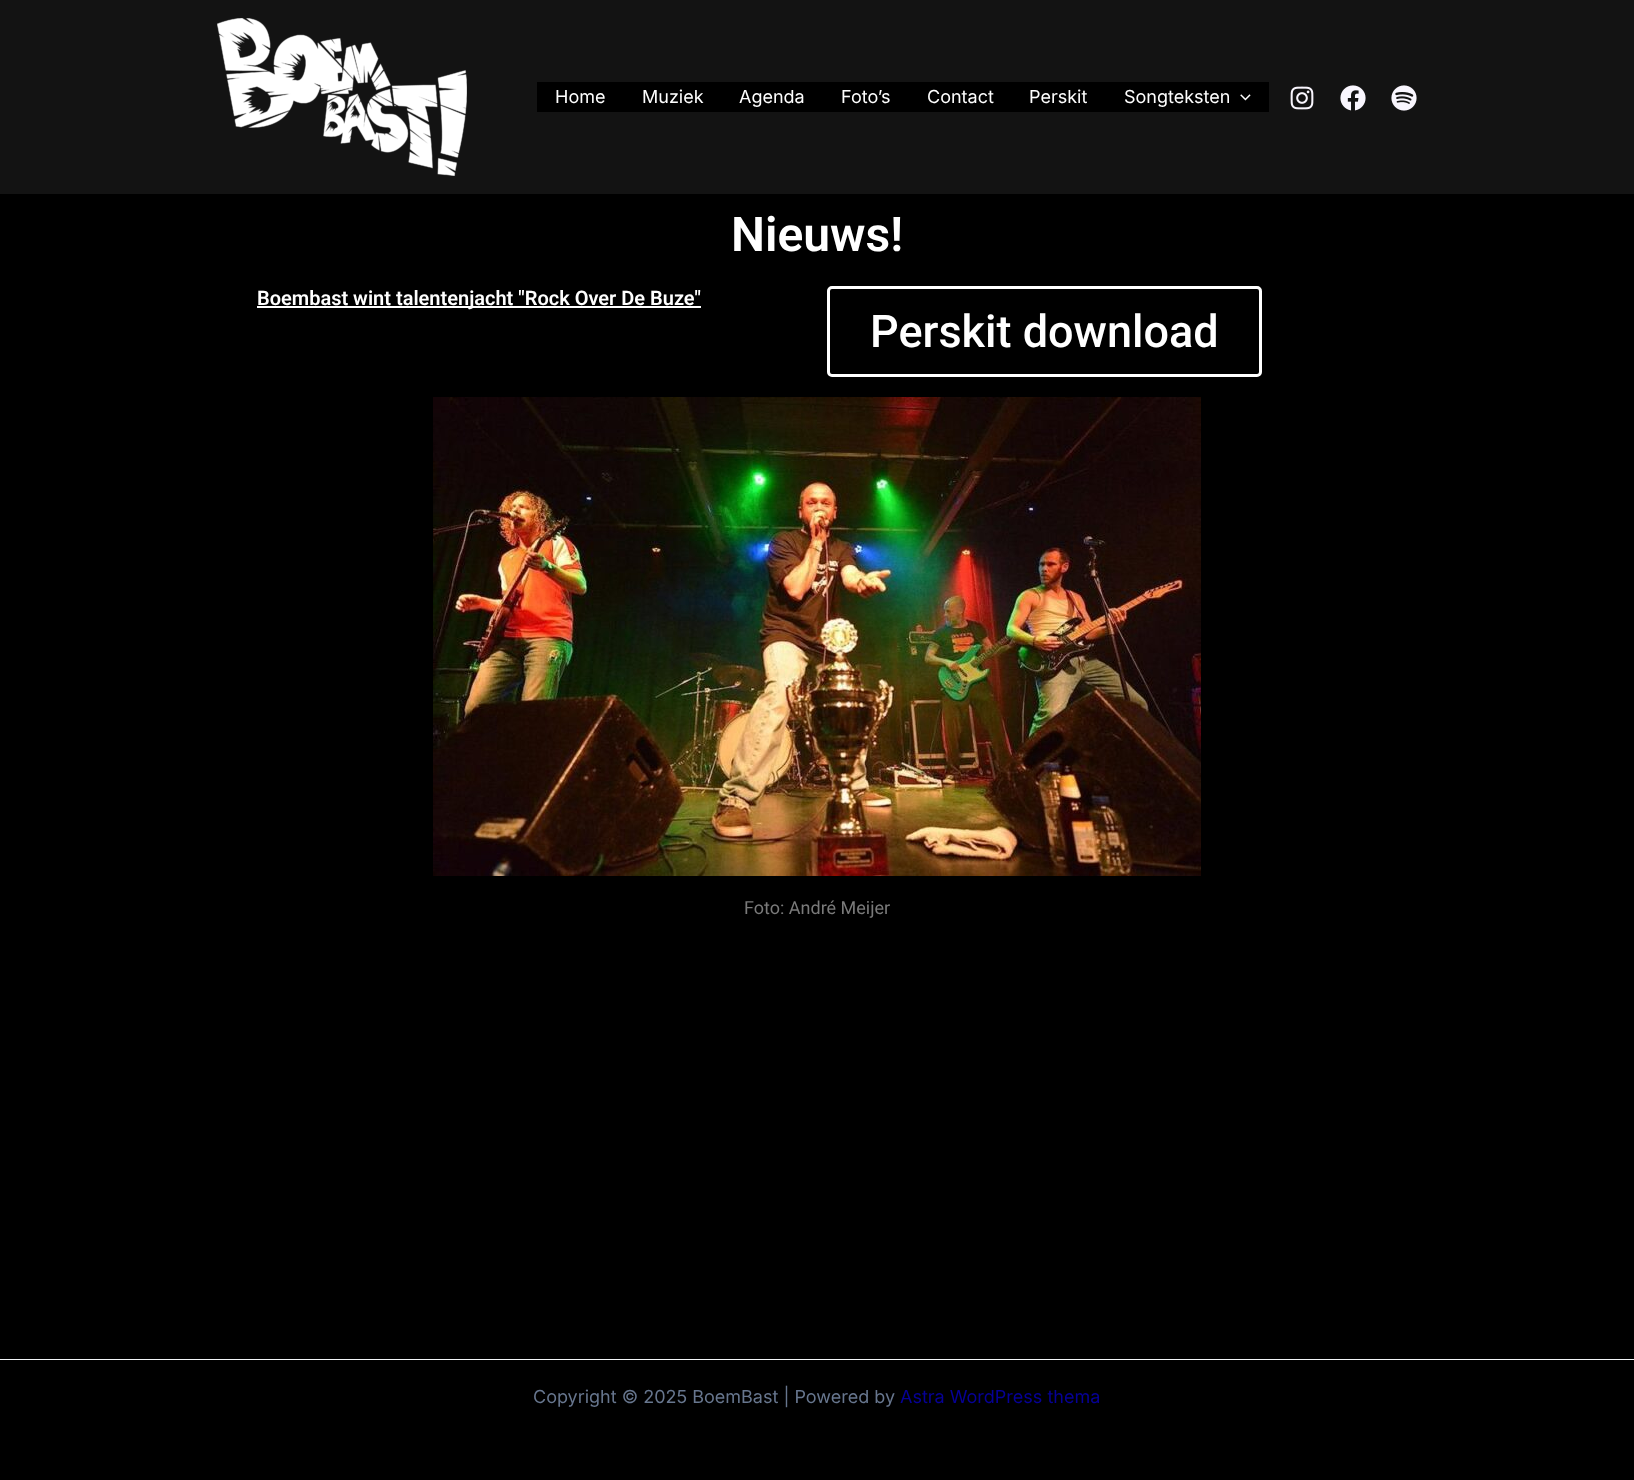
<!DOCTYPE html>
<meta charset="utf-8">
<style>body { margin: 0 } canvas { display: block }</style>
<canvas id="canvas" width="1634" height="1480"></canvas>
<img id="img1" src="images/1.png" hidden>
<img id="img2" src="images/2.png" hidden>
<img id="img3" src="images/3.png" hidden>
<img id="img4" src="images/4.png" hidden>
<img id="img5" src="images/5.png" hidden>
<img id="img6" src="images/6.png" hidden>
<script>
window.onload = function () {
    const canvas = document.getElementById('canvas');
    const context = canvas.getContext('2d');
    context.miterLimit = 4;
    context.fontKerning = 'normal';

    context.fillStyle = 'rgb(0, 0, 0)';
    context.fillRect(0, 0, 1634, 1480);
    context.fillStyle = 'rgb(19, 19, 19)';
    context.fillRect(0, 0, 1634, 194);
    context.drawImage(document.getElementById('img1'), 217, 18, 250, 158);
    context.fillStyle = 'rgb(0, 0, 0)';
    context.fillRect(537, 82, 732, 30);
    context.drawImage(document.getElementById('img2'), 1240, 94, 11, 7);
    context.drawImage(document.getElementById('img3'), 1290, 86, 24, 24);
    context.drawImage(document.getElementById('img4'), 1340, 85, 26, 26);
    context.drawImage(document.getElementById('img5'), 1391, 85, 26, 26);
    context.fillStyle = 'rgb(255, 255, 255)';
    context.fillRect(257, 306, 444, 2);
    context.beginPath();
    context.roundRect(828.5, 287.5, 432, 88, 3.5);
    context.strokeStyle = 'rgb(255, 255, 255)';
    context.lineWidth = 3;
    context.stroke();
    context.drawImage(document.getElementById('img6'), 433, 397, 768, 479);
    context.fillStyle = 'rgb(242, 245, 247)';
    context.fillRect(0, 1359, 1634, 1);
    context.font = '18px Inter';
    context.fillStyle = 'rgb(255, 255, 255)';
    context.fillText('Home', 555, 103);
    context.fillText('Muziek', 642, 103);
    context.fillText('Agenda', 739, 103);
    context.fillText('Foto’s', 841, 103);
    context.fillText('Contact', 927, 103);
    context.fillText('Perskit', 1029, 103);
    context.fillText('Songteksten', 1124, 103);
    context.font = '600 48px Roboto';
    context.fillText('Nieuws!', 731, 251);
    context.font = '600 20px Roboto';
    context.fillText('Boembast wint talentenjacht "Rock Over De Buze"', 257, 305);
    context.font = '500 45px Roboto';
    context.fillText('Perskit download', 870, 347);
    context.font = '18px Roboto';
    context.fillStyle = 'rgb(122, 122, 122)';
    context.fillText('Foto: André Meijer', 744, 914);
    context.font = '18px Inter';
    context.fillStyle = 'rgb(103, 118, 142)';
    context.fillText('Copyright © 2025 BoemBast | Powered by', 533, 1403);
    context.fillStyle = 'rgb(6, 0, 151)';
    context.fillText('Astra WordPress thema', 900, 1403);
};
</script>
